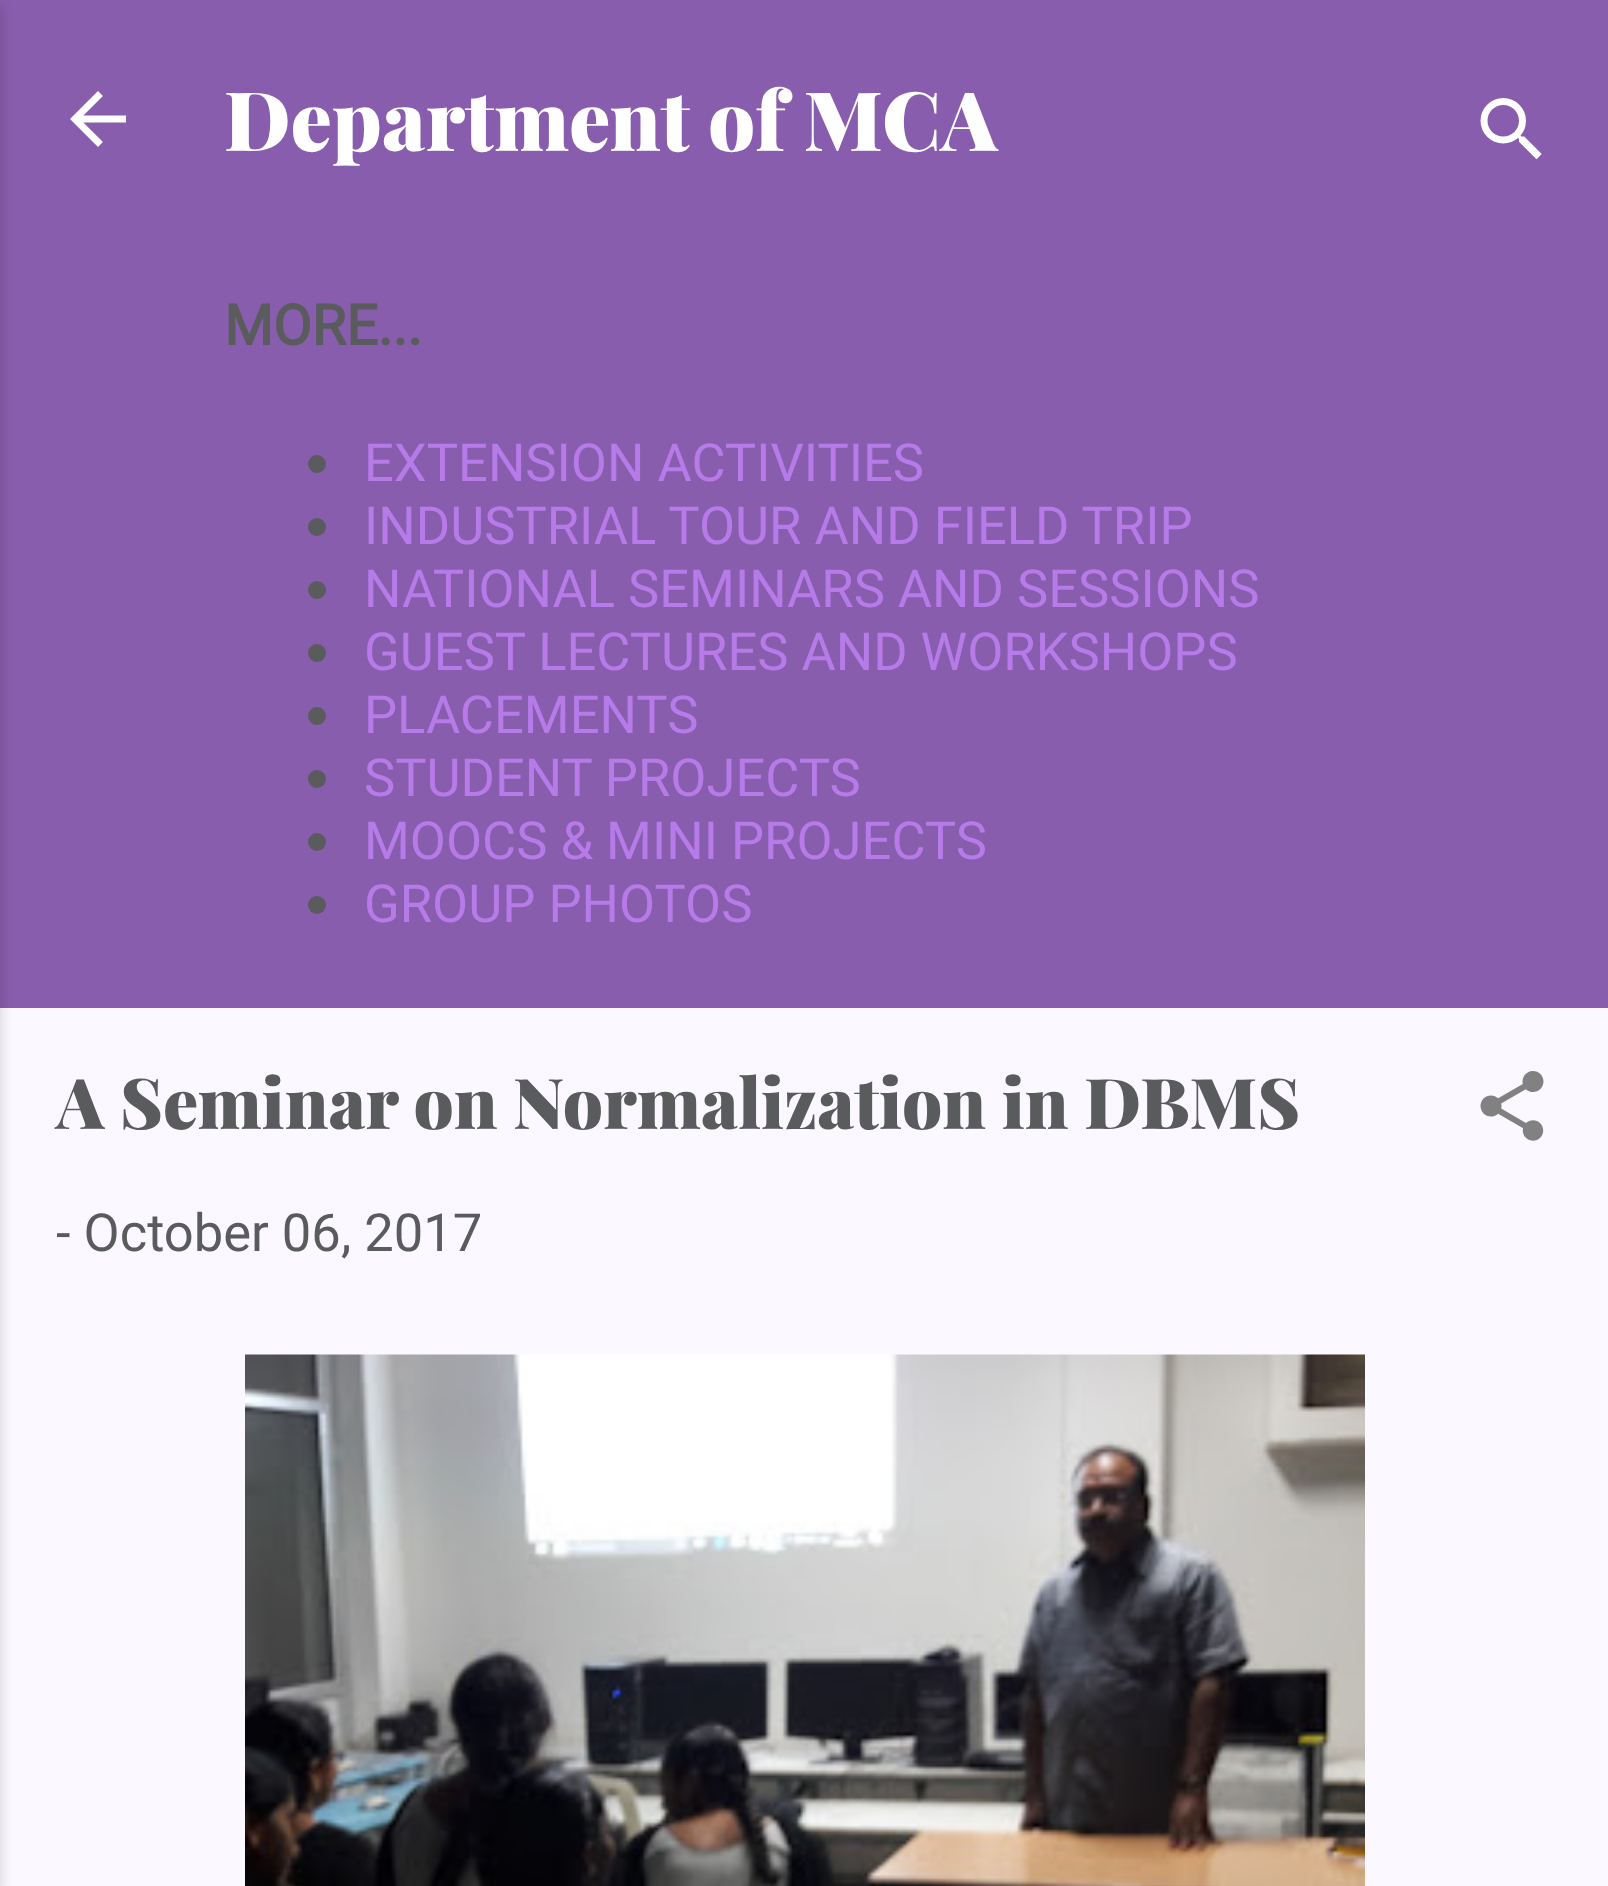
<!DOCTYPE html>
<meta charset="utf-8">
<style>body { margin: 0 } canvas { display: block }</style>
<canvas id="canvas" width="1608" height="1886"></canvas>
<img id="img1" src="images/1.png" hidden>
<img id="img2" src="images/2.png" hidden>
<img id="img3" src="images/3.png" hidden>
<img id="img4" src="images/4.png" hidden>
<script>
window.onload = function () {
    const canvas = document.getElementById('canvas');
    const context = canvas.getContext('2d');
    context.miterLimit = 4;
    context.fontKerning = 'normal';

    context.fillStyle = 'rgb(137, 93, 173)';
    context.fillRect(0, 0, 1608, 1886);
    context.fillStyle = 'rgb(252, 248, 255)';
    context.fillRect(0, 1008, 1608, 878);
    context.fillStyle = 'rgba(0, 0, 0, 0.1)';
    context.filter = 'blur(5px)';
    context.beginPath();
    context.rect(-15, 4, 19, 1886);
    context.fill();
    context.filter = 'none';
    context.drawImage(document.getElementById('img1'), 70, 91, 56, 56);
    context.fillStyle = 'rgb(90, 91, 93)';
    context.beginPath();
    context.arc(317, 464, 9, 0, 2 * Math.PI);
    context.fill();
    context.beginPath();
    context.arc(317, 527, 9, 0, 2 * Math.PI);
    context.fill();
    context.beginPath();
    context.arc(317, 590, 9, 0, 2 * Math.PI);
    context.fill();
    context.beginPath();
    context.arc(317, 653, 9, 0, 2 * Math.PI);
    context.fill();
    context.beginPath();
    context.arc(317, 716, 9, 0, 2 * Math.PI);
    context.fill();
    context.beginPath();
    context.arc(317, 779, 9, 0, 2 * Math.PI);
    context.fill();
    context.beginPath();
    context.arc(317, 842, 9, 0, 2 * Math.PI);
    context.fill();
    context.beginPath();
    context.arc(317, 905, 9, 0, 2 * Math.PI);
    context.fill();
    context.drawImage(document.getElementById('img2'), 1480, 98, 62, 62);
    context.drawImage(document.getElementById('img3'), 1480, 1071, 64, 70);
    context.drawImage(document.getElementById('img4'), 245, 1354, 1120, 532);
    context.font = '900 82.1px Playfair Display';
    context.fillStyle = 'rgb(255, 255, 255)';
    context.fillText('Department of MCA', 224, 151);
    context.font = 'bold 56px Roboto';
    context.fillStyle = 'rgb(90, 91, 93)';
    context.fillText('MORE...', 224, 345);
    context.font = '52.5px Roboto';
    context.fillStyle = 'rgb(182, 123, 233)';
    context.fillText('EXTENSION ACTIVITIES', 364, 481);
    context.fillText('INDUSTRIAL TOUR AND FIELD TRIP', 364, 544);
    context.fillText('NATIONAL SEMINARS AND SESSIONS', 364, 607);
    context.fillText('GUEST LECTURES AND WORKSHOPS', 364, 670);
    context.fillText('PLACEMENTS', 364, 733);
    context.fillText('STUDENT PROJECTS', 364, 796);
    context.fillText('MOOCS & MINI PROJECTS', 364, 859);
    context.fillText('GROUP PHOTOS', 364, 922);
    context.font = '900 70px Playfair Display';
    context.fillStyle = 'rgb(90, 91, 93)';
    context.fillText('A Seminar on Normalization in DBMS', 56, 1129);
    context.font = '52.5px Roboto';
    context.fillText('- October 06, 2017', 56, 1251);
};
</script>
